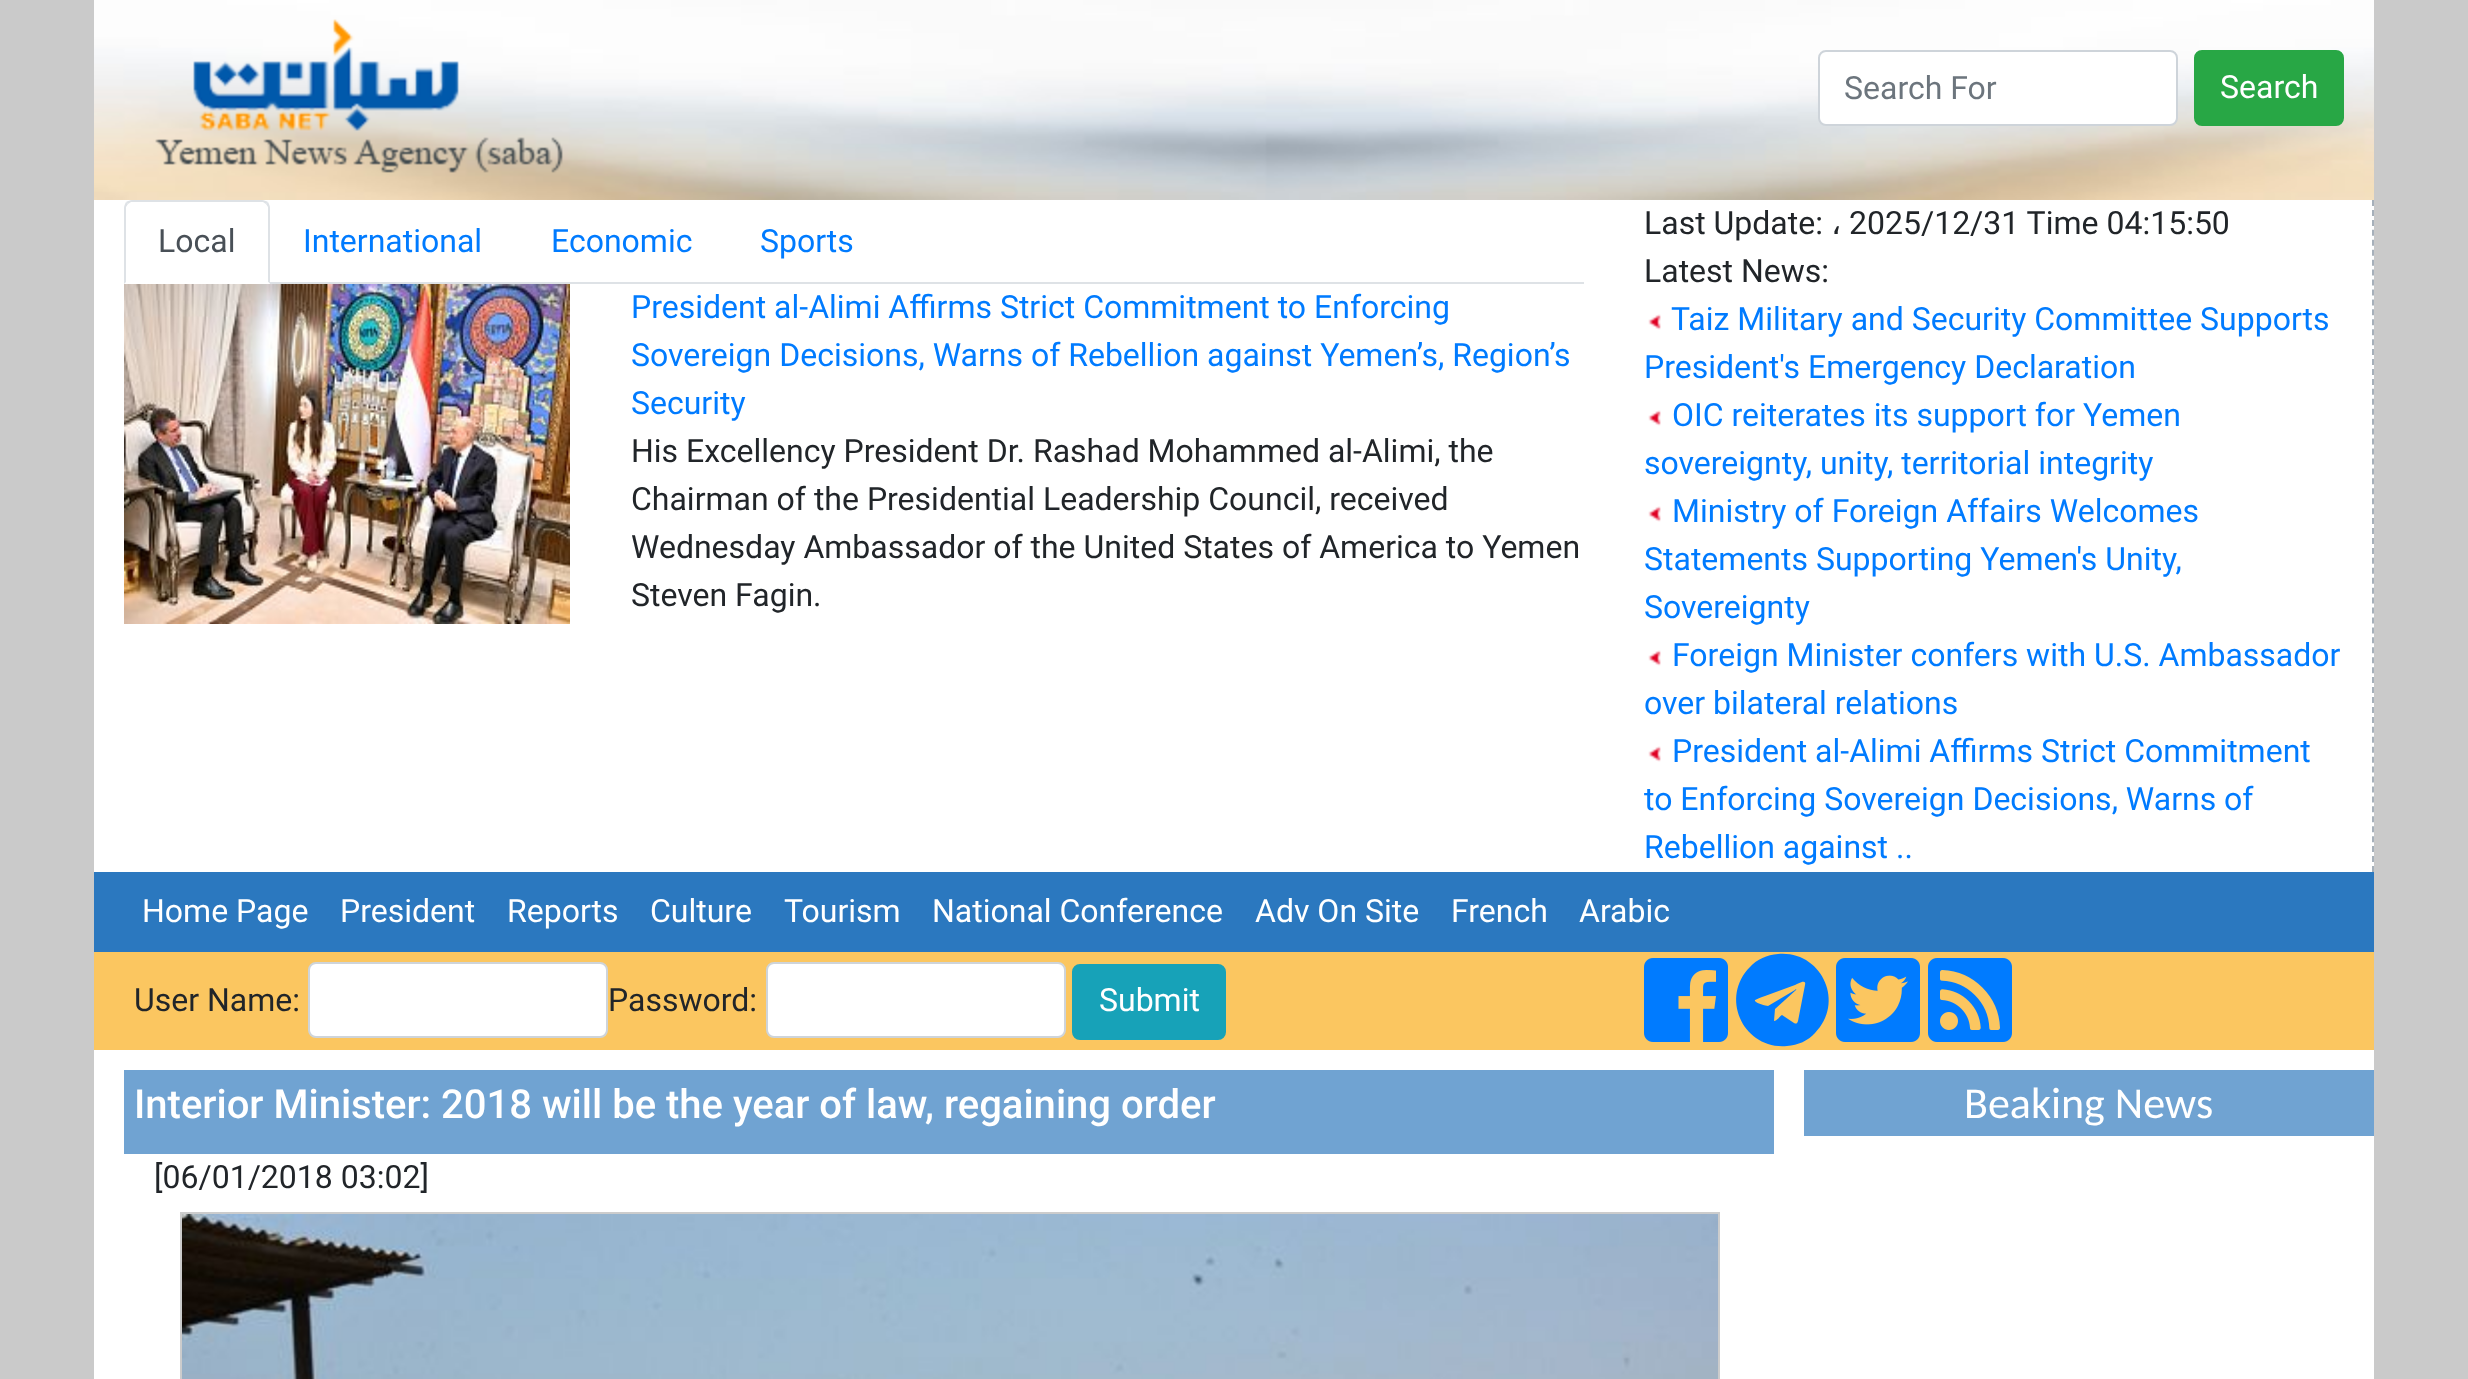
<!DOCTYPE html>
<meta charset="utf-8">
<style>body { margin: 0 } canvas { display: block }</style>
<canvas id="canvas" width="2468" height="1379"></canvas>
<img id="img1" src="images/1.png" hidden>
<img id="img2" src="images/2.png" hidden>
<img id="img3" src="images/3.png" hidden>
<img id="img4" src="images/4.png" hidden>
<img id="img5" src="images/5.png" hidden>
<img id="img6" src="images/6.png" hidden>
<img id="img7" src="images/7.png" hidden>
<script>
window.onload = function () {
    const canvas = document.getElementById('canvas');
    const context = canvas.getContext('2d');
    context.miterLimit = 4;
    context.fontKerning = 'normal';

    context.fillStyle = 'rgb(202, 202, 202)';
    context.fillRect(0, 0, 2468, 1379);
    context.fillStyle = 'rgb(255, 255, 255)';
    context.fillRect(94, 200, 2280, 1179);
    context.drawImage(document.getElementById('img1'), 94, 0, 2280, 200);
    context.beginPath();
    context.roundRect(1819, 51, 358, 74, 7);
    context.fill();
    context.strokeStyle = 'rgb(206, 212, 218)';
    context.lineWidth = 2;
    context.stroke();
    context.fillStyle = 'rgb(40, 167, 69)';
    context.beginPath();
    context.roundRect(2195, 51, 148, 74, 7);
    context.fill();
    context.strokeStyle = 'rgb(40, 167, 69)';
    context.stroke();
    context.fillStyle = 'rgb(222, 226, 230)';
    context.fillRect(270, 282, 1314, 2);
    context.beginPath();
    context.moveTo(132, 200);
    context.bezierCurveTo(130, 200, 128, 201, 126, 202);
    context.lineTo(128, 204);
    context.lineTo(131, 202);
    context.lineTo(263, 202);
    context.lineTo(266, 204);
    context.lineTo(268, 202);
    context.bezierCurveTo(266, 201, 264, 200, 262, 200);
    context.closePath();
    context.fill();
    context.beginPath();
    context.moveTo(270, 284);
    context.lineTo(270, 208);
    context.bezierCurveTo(270, 206, 269, 204, 268, 202);
    context.lineTo(266, 204);
    context.lineTo(268, 207);
    context.lineTo(268, 282);
    context.closePath();
    context.fill();
    context.fillStyle = 'rgb(255, 255, 255)';
    context.beginPath();
    context.moveTo(270, 284);
    context.lineTo(268, 282);
    context.lineTo(126, 282);
    context.lineTo(124, 284);
    context.closePath();
    context.fill();
    context.fillStyle = 'rgb(222, 226, 230)';
    context.beginPath();
    context.moveTo(124, 284);
    context.lineTo(126, 282);
    context.lineTo(126, 207);
    context.lineTo(128, 204);
    context.lineTo(126, 202);
    context.bezierCurveTo(125, 204, 124, 206, 124, 208);
    context.closePath();
    context.fill();
    context.drawImage(document.getElementById('img2'), 124, 284, 446, 340);
    context.beginPath();
    context.moveTo(2373, 200);
    context.lineTo(2373, 872);
    context.strokeStyle = 'rgb(166, 176, 186)';
    context.setLineDash([6, 3.94]);
    context.stroke();
    context.drawImage(document.getElementById('img3'), 1648, 314, 13, 16);
    context.drawImage(document.getElementById('img3'), 1648, 410, 13, 16);
    context.drawImage(document.getElementById('img3'), 1648, 506, 13, 16);
    context.drawImage(document.getElementById('img3'), 1648, 650, 13, 16);
    context.drawImage(document.getElementById('img3'), 1648, 746, 13, 16);
    context.fillStyle = 'rgb(43, 120, 191)';
    context.fillRect(94, 872, 2280, 80);
    context.fillStyle = 'rgb(251, 198, 96)';
    context.fillRect(94, 952, 2280, 98);
    context.fillStyle = 'rgb(255, 255, 255)';
    context.beginPath();
    context.roundRect(309, 963, 298, 74, 7);
    context.fill();
    context.strokeStyle = 'rgb(206, 212, 218)';
    context.setLineDash([]);
    context.stroke();
    context.beginPath();
    context.roundRect(767, 963, 298, 74, 7);
    context.fill();
    context.stroke();
    context.fillStyle = 'rgb(23, 162, 184)';
    context.beginPath();
    context.roundRect(1073, 965, 152, 74, 7);
    context.fill();
    context.strokeStyle = 'rgb(23, 162, 184)';
    context.stroke();
    context.drawImage(document.getElementById('img4'), 1644, 958, 84, 84);
    context.fillStyle = 'rgb(0, 123, 255)';
    context.beginPath();
    context.moveTo(1750, 967);
    context.bezierCurveTo(1757, 959, 1767, 955, 1778, 954);
    context.bezierCurveTo(1821, 950, 1846, 1002, 1815, 1033);
    context.bezierCurveTo(1808, 1041, 1798, 1045, 1787, 1046);
    context.bezierCurveTo(1744, 1050, 1719, 998, 1750, 967);
    context.closePath();
    context.moveTo(1805, 985);
    context.bezierCurveTo(1807, 978, 1797, 984, 1795, 985);
    context.lineTo(1765, 996);
    context.bezierCurveTo(1759, 998, 1754, 1000, 1755, 1001);
    context.bezierCurveTo(1756, 1003, 1766, 1006, 1768, 1006);
    context.lineTo(1795, 990);
    context.bezierCurveTo(1795, 989, 1797, 989, 1796, 990);
    context.lineTo(1775, 1009);
    context.lineTo(1774, 1021);
    context.bezierCurveTo(1777, 1021, 1780, 1016, 1782, 1015);
    context.lineTo(1794, 1023);
    context.bezierCurveTo(1796, 1024, 1797, 1024, 1798, 1021);
    context.closePath();
    context.fill();
    context.drawImage(document.getElementById('img5'), 1836, 958, 84, 84);
    context.drawImage(document.getElementById('img6'), 1928, 958, 84, 84);
    context.fillStyle = 'rgb(112, 163, 210)';
    context.fillRect(124, 1070, 1650, 84);
    context.strokeStyle = 'rgb(204, 204, 204)';
    context.strokeRect(181, 1213, 1538, 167);
    context.drawImage(document.getElementById('img7'), 182, 1214, 1536, 165);
    context.fillRect(1804, 1070, 570, 66);
    context.font = '32px Roboto';
    context.fillStyle = 'rgb(108, 117, 125)';
    context.fillText('Search For', 1844, 99);
    context.fillStyle = 'rgb(255, 255, 255)';
    context.fillText('Search', 2220, 98);
    context.fillStyle = 'rgb(73, 80, 87)';
    context.fillText('Local', 158, 252);
    context.fillStyle = 'rgb(0, 123, 255)';
    context.fillText('International', 303, 252);
    context.fillText('Economic', 551, 252);
    context.fillText('Sports', 760, 252);
    context.fillText('President al-Alimi Affirms Strict Commitment to Enforcing', 631, 318);
    context.fillText('Sovereign Decisions, Warns of Rebellion against Yemen’s, Region’s', 631, 366);
    context.fillText('Security', 631, 414);
    context.fillStyle = 'rgb(33, 37, 41)';
    context.fillText('His Excellency President Dr. Rashad Mohammed al-Alimi, the', 631, 462);
    context.fillText('Chairman of the Presidential Leadership Council, received', 631, 510);
    context.fillText('Wednesday Ambassador of the United States of America to Yemen', 631, 558);
    context.fillText('Steven Fagin.', 631, 606);
    context.fillText('Last Update:', 1644, 234);
    context.font = '32px DejaVu Sans';
    context.fillText('،', 1831, 234);
    context.font = '32px Roboto';
    context.fillText('2025/12/31 Time 04:15:50', 1849, 234);
    context.fillText('Latest News:', 1644, 282);
    context.fillStyle = 'rgb(0, 123, 255)';
    context.fillText('Taiz Military and Security Committee Supports', 1671, 330);
    context.fillText('President\'s Emergency Declaration', 1644, 378);
    context.fillText('OIC reiterates its support for Yemen', 1672, 426);
    context.fillText('sovereignty, unity, territorial integrity', 1644, 474);
    context.fillText('Ministry of Foreign Affairs Welcomes', 1672, 522);
    context.fillText('Statements Supporting Yemen\'s Unity,', 1644, 570);
    context.fillText('Sovereignty', 1644, 618);
    context.fillText('Foreign Minister confers with U.S. Ambassador', 1672, 666);
    context.fillText('over bilateral relations', 1644, 714);
    context.fillText('President al-Alimi Affirms Strict Commitment', 1672, 762);
    context.fillText('to Enforcing Sovereign Decisions, Warns of', 1644, 810);
    context.fillText('Rebellion against ..', 1644, 858);
    context.fillStyle = 'rgb(255, 255, 255)';
    context.fillText('Home Page', 142, 922);
    context.fillText('President', 340, 922);
    context.fillText('Reports', 507, 922);
    context.fillText('Culture', 650, 922);
    context.fillText('Tourism', 784, 922);
    context.fillText('National Conference', 932, 922);
    context.fillText('Adv On Site', 1255, 922);
    context.fillText('French', 1451, 922);
    context.fillText('Arabic', 1579, 922);
    context.fillStyle = 'rgb(33, 37, 41)';
    context.fillText('User Name:', 134, 1011);
    context.fillText('Password:', 608, 1011);
    context.fillStyle = 'rgb(255, 255, 255)';
    context.fillText('Submit', 1099, 1011);
    context.font = '500 40px Roboto';
    context.fillText('Interior Minister: 2018 will be the year of law, regaining order', 134, 1118);
    context.font = '32px Roboto';
    context.fillStyle = 'rgb(33, 37, 41)';
    context.fillText('[06/01/2018 03:02]', 154, 1188);
    context.font = '44px Carlito';
    context.fillStyle = 'rgb(255, 255, 255)';
    context.fillText('Beaking News', 1964, 1118);
};
</script>
